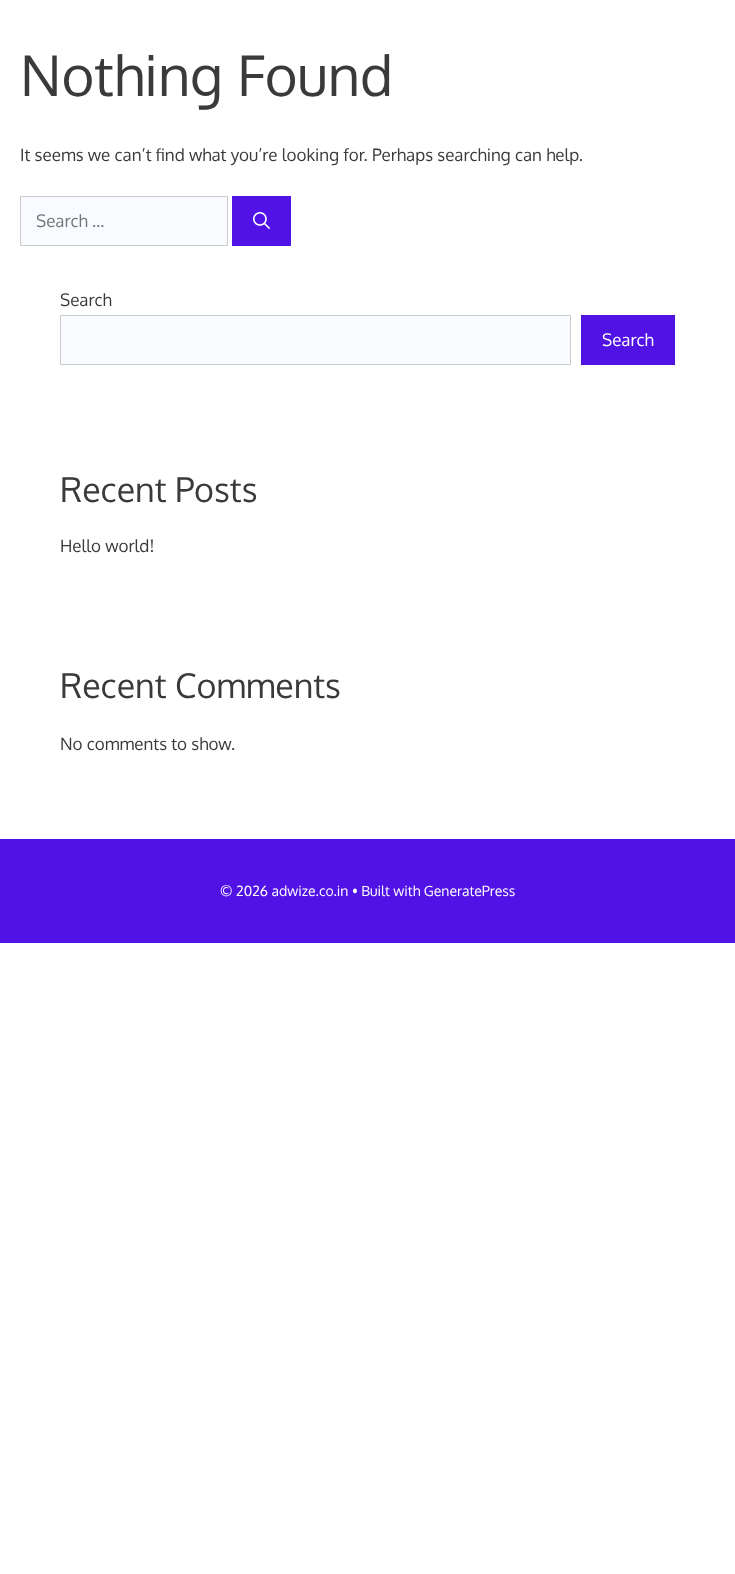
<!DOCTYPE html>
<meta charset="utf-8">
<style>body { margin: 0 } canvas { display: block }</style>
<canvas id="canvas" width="735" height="1574"></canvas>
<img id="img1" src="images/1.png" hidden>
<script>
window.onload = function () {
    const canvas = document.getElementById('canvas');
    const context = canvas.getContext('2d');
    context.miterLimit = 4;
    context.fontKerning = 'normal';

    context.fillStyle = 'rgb(255, 255, 255)';
    context.fillRect(0, 0, 735, 1574);
    context.fillStyle = 'rgb(248, 251, 255)';
    context.beginPath();
    context.rect(20.5, 196.5, 207, 49);
    context.fill();
    context.strokeStyle = 'rgb(204, 204, 204)';
    context.stroke();
    context.fillStyle = 'rgb(81, 18, 229)';
    context.fillRect(232, 196, 59, 50);
    context.drawImage(document.getElementById('img1'), 253, 212, 17, 17);
    context.fillStyle = 'rgb(248, 251, 255)';
    context.beginPath();
    context.rect(60.5, 315.5, 510, 49);
    context.fill();
    context.stroke();
    context.fillStyle = 'rgb(81, 18, 229)';
    context.fillRect(581, 315, 94, 50);
    context.fillRect(0, 839, 735, 104);
    context.font = '56px Oxygen';
    context.fillStyle = 'rgb(58, 58, 58)';
    context.fillText('Nothing Found', 20, 96);
    context.font = '17px Oxygen';
    context.fillText('It seems we can’t find what you’re looking for. Perhaps searching can help.', 20, 161);
    context.fillStyle = 'rgb(117, 117, 117)';
    context.fillText('Search …', 36, 227);
    context.fillStyle = 'rgb(58, 58, 58)';
    context.fillText('Search', 60, 306);
    context.fillStyle = 'rgb(255, 255, 255)';
    context.fillText('Search', 602, 346);
    context.font = '34px Oxygen';
    context.fillStyle = 'rgb(58, 58, 58)';
    context.fillText('Recent Posts', 60, 502);
    context.font = '17px Oxygen';
    context.fillText('Hello world!', 60, 552);
    context.font = '34px Oxygen';
    context.fillText('Recent Comments', 60, 698);
    context.font = '17px Oxygen';
    context.fillText('No comments to show.', 60, 750);
    context.font = '14px Oxygen';
    context.fillStyle = 'rgb(255, 255, 255)';
    context.fillText('© 2026 adwize.co.in • Built with GeneratePress', 220, 896);
};
</script>
